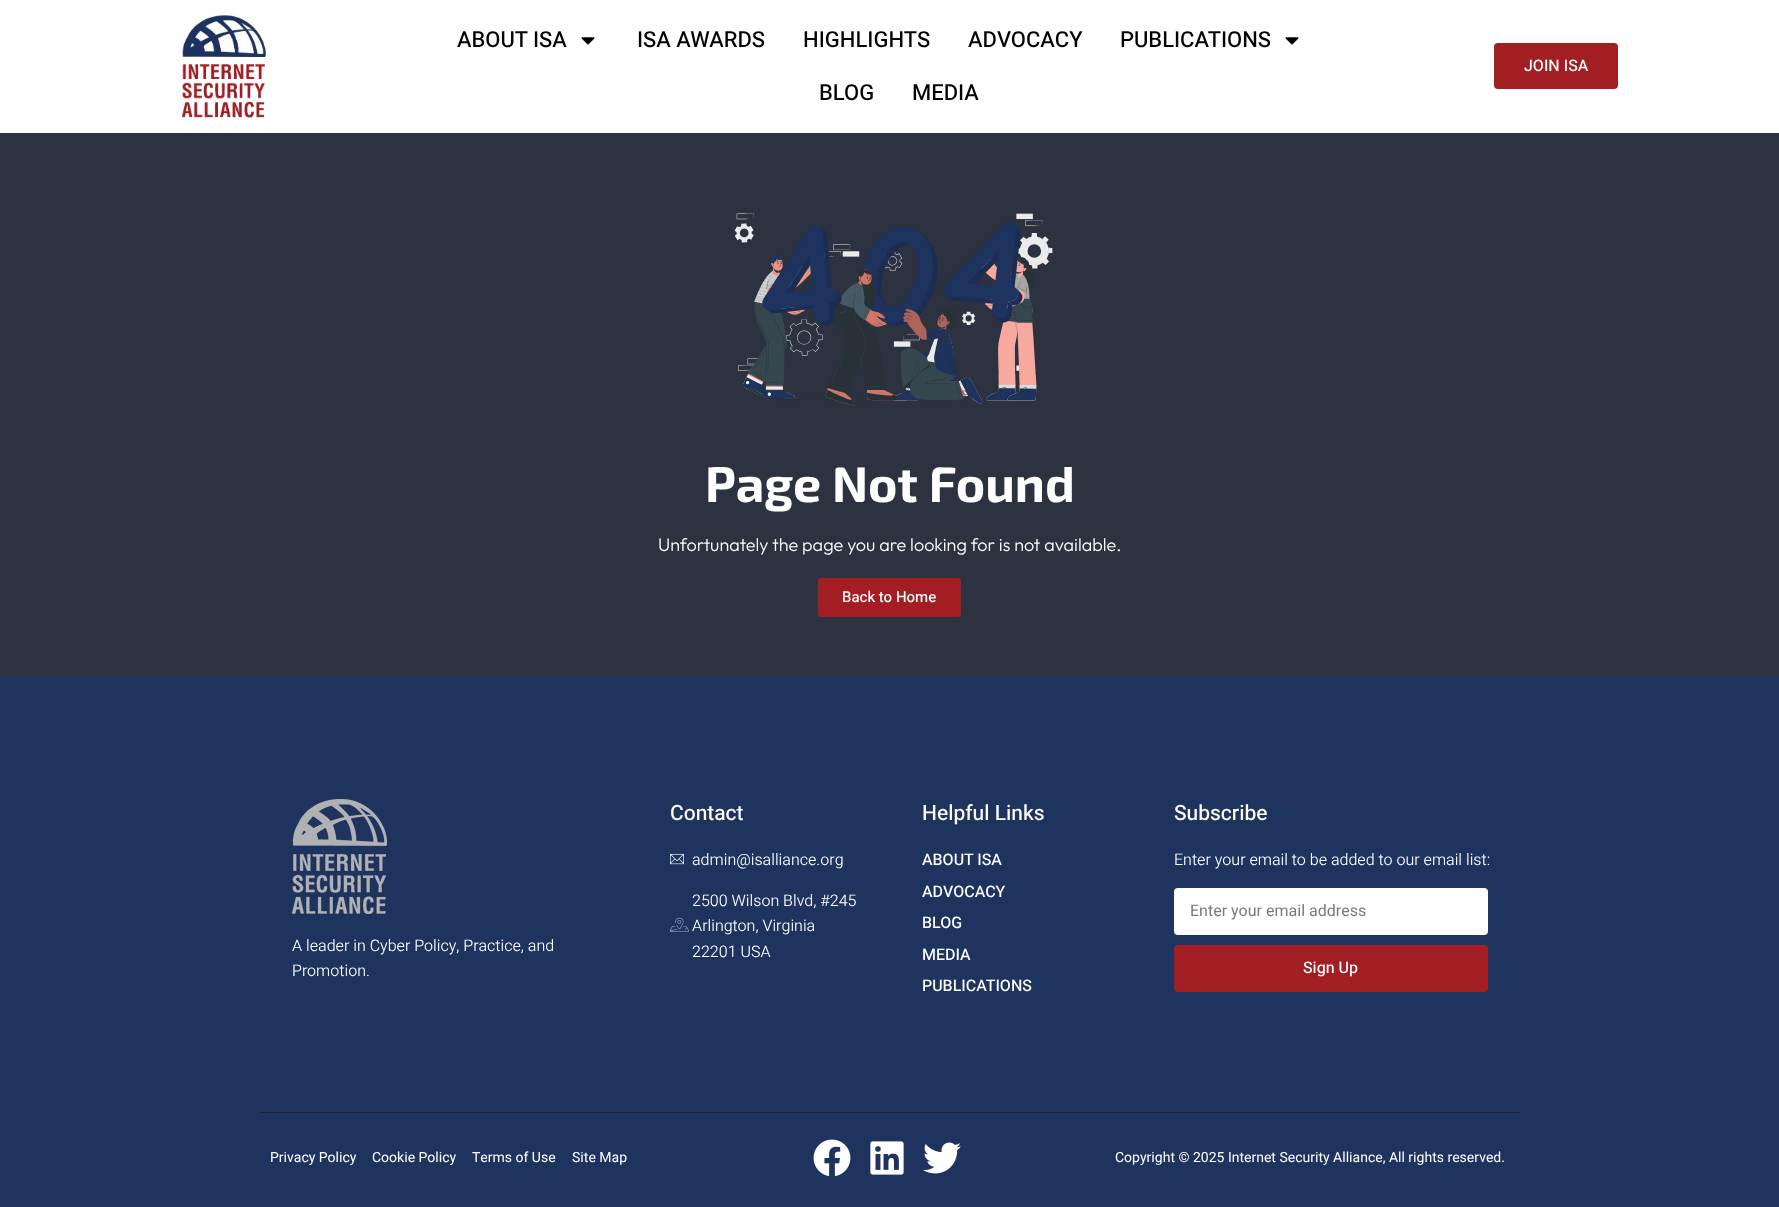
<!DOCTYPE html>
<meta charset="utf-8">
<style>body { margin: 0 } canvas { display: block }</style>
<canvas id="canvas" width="1779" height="1207"></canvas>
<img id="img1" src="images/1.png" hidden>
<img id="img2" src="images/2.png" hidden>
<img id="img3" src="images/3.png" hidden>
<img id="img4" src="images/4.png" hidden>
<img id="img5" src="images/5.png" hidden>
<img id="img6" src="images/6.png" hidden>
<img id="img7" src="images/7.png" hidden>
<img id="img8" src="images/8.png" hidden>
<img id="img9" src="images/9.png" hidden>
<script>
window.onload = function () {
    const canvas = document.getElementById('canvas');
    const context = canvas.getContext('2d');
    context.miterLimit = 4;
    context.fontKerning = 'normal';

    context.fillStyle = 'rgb(44, 50, 63)';
    context.fillRect(0, 0, 1779, 1207);
    context.fillStyle = 'rgb(255, 255, 255)';
    context.fillRect(0, 0, 1779, 133);
    context.drawImage(document.getElementById('img1'), 181, 14, 87, 104);
    context.drawImage(document.getElementById('img2'), 581, 37, 14, 8);
    context.drawImage(document.getElementById('img2'), 1285, 37, 14, 8);
    context.fillStyle = 'rgb(163, 30, 35)';
    context.beginPath();
    context.roundRect(1494, 43, 124, 46, 4);
    context.fill();
    context.drawImage(document.getElementById('img3'), 734, 213, 319, 193);
    context.beginPath();
    context.roundRect(818, 578, 143, 39, 3);
    context.fill();
    context.fillStyle = 'rgb(31, 51, 95)';
    context.fillRect(0, 677, 1779, 530);
    context.fillStyle = 'rgb(33, 33, 33)';
    context.fillRect(260, 1112, 1260, 1);
    context.drawImage(document.getElementById('img4'), 292, 799, 95, 115);
    context.drawImage(document.getElementById('img5'), 670, 853, 14, 12);
    context.drawImage(document.getElementById('img6'), 670, 917, 19, 15);
    context.fillStyle = 'rgb(255, 255, 255)';
    context.beginPath();
    context.roundRect(1174, 888, 314, 47, 4);
    context.fill();
    context.fillStyle = 'rgb(163, 30, 35)';
    context.beginPath();
    context.roundRect(1174, 945, 314, 47, 4);
    context.fill();
    context.drawImage(document.getElementById('img7'), 813, 1139, 38, 38);
    context.drawImage(document.getElementById('img8'), 870, 1141, 34, 34);
    context.drawImage(document.getElementById('img9'), 923, 1142, 38, 32);
    context.font = '500 22px Heebo';
    context.fillStyle = 'rgb(0, 0, 0)';
    context.fillText('ABOUT ISA', 457, 47);
    context.fillText('ISA AWARDS', 637, 47);
    context.fillText('HIGHLIGHTS', 803, 47);
    context.fillText('ADVOCACY', 968, 47);
    context.fillText('PUBLICATIONS', 1120, 47);
    context.fillText('BLOG', 819, 100);
    context.fillText('MEDIA', 912, 100);
    context.font = '500 16px Heebo';
    context.fillStyle = 'rgb(255, 255, 255)';
    context.fillText('JOIN ISA', 1524, 71);
    context.font = 'bold 50px "Exo 2"';
    context.fillText('Page Not Found', 705, 502);
    context.font = '300 18px Outfit';
    context.fillText('Unfortunately the page you are looking for is not available.', 658, 551);
    context.font = '500 15px Heebo';
    context.fillText('Back to Home', 842, 602);
    context.font = '300 16px Heebo';
    context.fillText('A leader in Cyber Policy, Practice, and', 292, 951);
    context.fillText('Promotion.', 292, 976);
    context.font = '500 21px Heebo';
    context.fillText('Contact', 670, 820);
    context.font = '300 16px Heebo';
    context.fillText('admin@isalliance.org', 692, 865);
    context.fillText('2500 Wilson Blvd, #245', 692, 906);
    context.fillText('Arlington, Virginia', 692, 931);
    context.fillText('22201 USA', 692, 957);
    context.font = '500 21px Heebo';
    context.fillText('Helpful Links', 922, 820);
    context.font = '500 16px Heebo';
    context.fillText('ABOUT ISA', 922, 865);
    context.fillText('ADVOCACY', 922, 897);
    context.fillText('BLOG', 922, 928);
    context.fillText('MEDIA', 922, 960);
    context.fillText('PUBLICATIONS', 922, 991);
    context.font = '500 21px Heebo';
    context.fillText('Subscribe', 1174, 820);
    context.font = '300 16px Heebo';
    context.fillText('Enter your email to be added to our email list:', 1174, 865);
    context.font = '16px Heebo';
    context.fillStyle = 'rgb(122, 122, 122)';
    context.fillText('Enter your email address', 1190, 916);
    context.font = '500 16px Heebo';
    context.fillStyle = 'rgb(255, 255, 255)';
    context.fillText('Sign Up', 1303, 973);
    context.font = '14px Heebo';
    context.fillText('Privacy Policy', 270, 1162);
    context.fillText('Cookie Policy', 372, 1162);
    context.fillText('Terms of Use', 472, 1162);
    context.fillText('Site Map', 572, 1162);
    context.fillText('Copyright © 2025 Internet Security Alliance, All rights reserved.', 1115, 1162);
};
</script>
